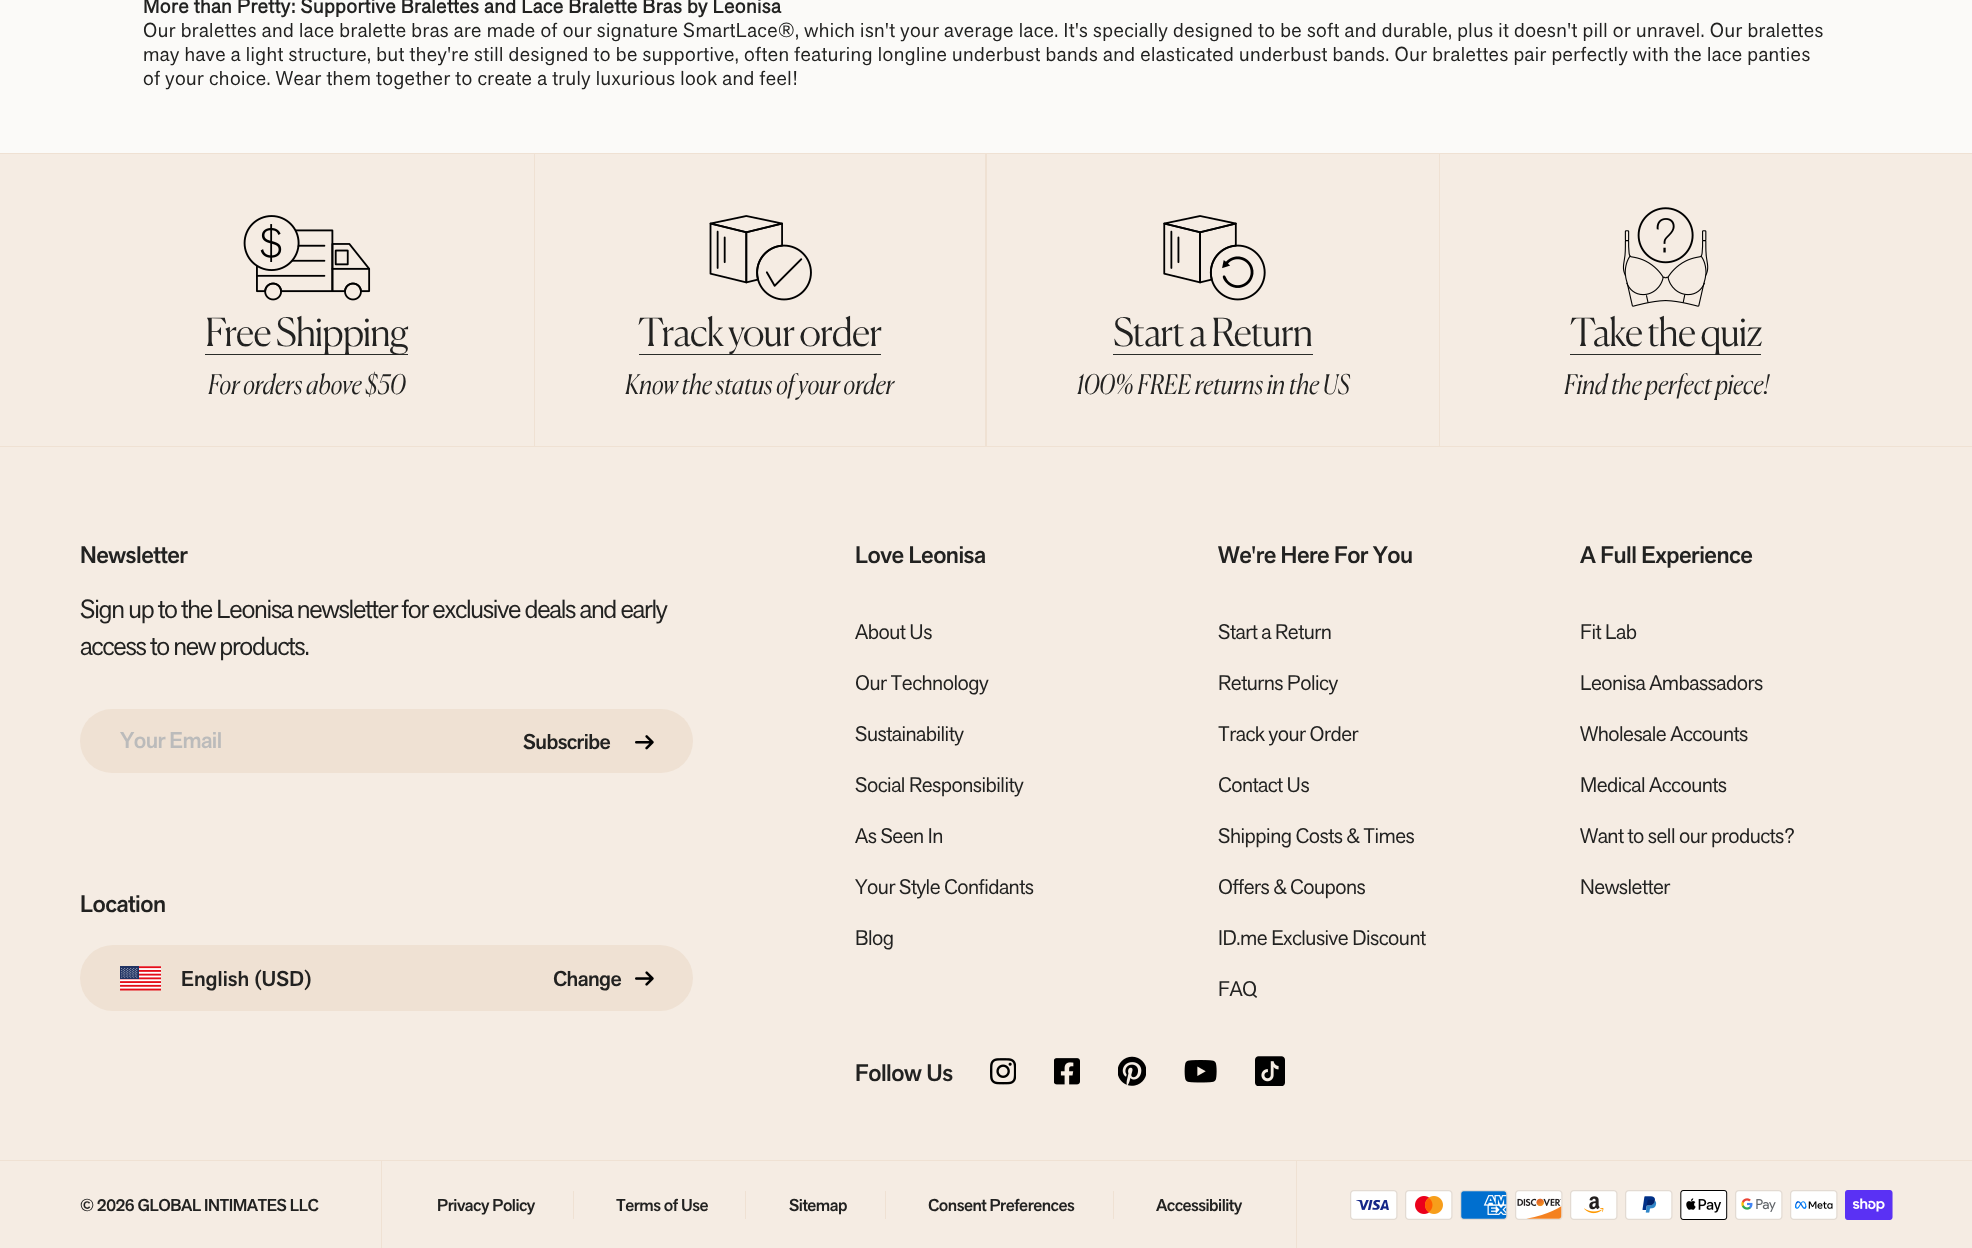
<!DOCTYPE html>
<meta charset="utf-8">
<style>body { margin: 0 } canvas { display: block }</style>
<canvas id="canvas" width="1972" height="1248"></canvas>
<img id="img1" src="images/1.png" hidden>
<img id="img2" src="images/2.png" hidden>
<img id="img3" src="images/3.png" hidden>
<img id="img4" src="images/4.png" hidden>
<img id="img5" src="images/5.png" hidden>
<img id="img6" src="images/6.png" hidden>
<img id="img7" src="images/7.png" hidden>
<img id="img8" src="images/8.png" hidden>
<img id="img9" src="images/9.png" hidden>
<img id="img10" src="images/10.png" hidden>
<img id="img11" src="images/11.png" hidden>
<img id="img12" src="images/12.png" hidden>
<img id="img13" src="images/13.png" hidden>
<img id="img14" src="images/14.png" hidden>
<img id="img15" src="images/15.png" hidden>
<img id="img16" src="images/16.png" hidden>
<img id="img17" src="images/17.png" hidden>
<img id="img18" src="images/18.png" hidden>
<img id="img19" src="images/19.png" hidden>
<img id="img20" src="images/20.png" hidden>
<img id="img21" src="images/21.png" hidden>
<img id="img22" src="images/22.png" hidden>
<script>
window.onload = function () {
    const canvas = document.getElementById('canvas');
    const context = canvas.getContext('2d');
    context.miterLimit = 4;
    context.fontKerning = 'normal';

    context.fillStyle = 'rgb(251, 250, 248)';
    context.fillRect(0, 0, 1972, 1248);
    context.fillStyle = 'rgb(245, 236, 227)';
    context.fillRect(0, 154, 1972, 1094);
    context.fillStyle = 'rgb(239, 225, 211)';
    context.fillRect(0, 153, 1972, 1);
    context.fillRect(0, 446, 1972, 1);
    context.drawImage(document.getElementById('img1'), 243, 215, 128, 86);
    context.fillStyle = 'rgb(42, 44, 41)';
    context.fillRect(205, 354, 203, 1);
    context.fillStyle = 'rgb(239, 225, 211)';
    context.fillRect(985, 154, 2, 292);
    context.fillRect(534, 154, 1, 292);
    context.drawImage(document.getElementById('img2'), 709, 215, 103, 86);
    context.fillStyle = 'rgb(42, 44, 41)';
    context.fillRect(639, 354, 242, 1);
    context.fillStyle = 'rgb(239, 225, 211)';
    context.fillRect(1439, 154, 1, 292);
    context.drawImage(document.getElementById('img3'), 1163, 215, 103, 86);
    context.fillStyle = 'rgb(42, 44, 41)';
    context.fillRect(1113, 354, 200, 1);
    context.drawImage(document.getElementById('img4'), 1622, 207, 87, 100);
    context.fillRect(1570, 354, 191, 1);
    context.fillStyle = 'rgb(239, 225, 211)';
    context.beginPath();
    context.roundRect(80, 709, 613, 64, 32);
    context.fill();
    context.drawImage(document.getElementById('img5'), 635, 735, 19, 15);
    context.beginPath();
    context.roundRect(80, 945, 613, 66, 33);
    context.fill();
    context.drawImage(document.getElementById('img6'), 120, 966, 41, 25);
    context.drawImage(document.getElementById('img7'), 635, 971, 19, 15);
    context.drawImage(document.getElementById('img8'), 990, 1058, 26, 27);
    context.drawImage(document.getElementById('img9'), 1054, 1058, 26, 27);
    context.drawImage(document.getElementById('img10'), 1118, 1056, 28, 30);
    context.drawImage(document.getElementById('img11'), 1184, 1060, 33, 23);
    context.drawImage(document.getElementById('img12'), 1255, 1056, 30, 30);
    context.fillRect(0, 1160, 1972, 1);
    context.fillRect(381, 1161, 1, 87);
    context.fillRect(573, 1191, 1, 28);
    context.fillRect(745, 1191, 1, 28);
    context.fillRect(885, 1191, 1, 28);
    context.fillRect(1113, 1191, 1, 28);
    context.fillRect(1296, 1161, 1, 87);
    context.drawImage(document.getElementById('img13'), 1350, 1190, 48, 30);
    context.drawImage(document.getElementById('img14'), 1405, 1190, 48, 30);
    context.drawImage(document.getElementById('img15'), 1460, 1190, 48, 30);
    context.drawImage(document.getElementById('img16'), 1515, 1190, 48, 30);
    context.drawImage(document.getElementById('img17'), 1570, 1190, 48, 30);
    context.drawImage(document.getElementById('img18'), 1625, 1190, 48, 30);
    context.drawImage(document.getElementById('img19'), 1680, 1190, 48, 30);
    context.drawImage(document.getElementById('img20'), 1735, 1190, 48, 30);
    context.drawImage(document.getElementById('img21'), 1790, 1190, 48, 30);
    context.drawImage(document.getElementById('img22'), 1845, 1190, 48, 30);
    context.letterSpacing = '0.46px';
    context.font = 'bold 20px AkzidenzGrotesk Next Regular';
    context.fillStyle = 'rgb(34, 34, 33)';
    context.fillText('More than Pretty: Supportive Bralettes and Lace Bralette Bras by Leonisa', 143, 13);
    context.font = '20px AkzidenzGrotesk Next Regular';
    context.fillText('Our bralettes and lace bralette bras are made of our signature SmartLace®, which isn\'t your average lace. It\'s specially designed to be soft and durable, plus it doesn\'t pill or unravel. Our bralettes', 143, 37);
    context.fillText('may have a light structure, but they\'re still designed to be supportive, often featuring longline underbust bands and elasticated underbust bands. Our bralettes pair perfectly with the lace panties', 143, 61);
    context.fillText('of your choice. Wear them together to create a truly luxurious look and feel!', 143, 85);
    context.letterSpacing = '-1px';
    context.font = '300 38.75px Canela';
    context.fillText('Free Shipping', 205, 346);
    context.letterSpacing = '-0.1px';
    context.font = 'italic 300 27.1px Canela';
    context.fillText('For orders above $50', 208, 394);
    context.letterSpacing = '-1px';
    context.font = '300 38.75px Canela';
    context.fillText('Track your order', 638, 346);
    context.letterSpacing = '-0.1px';
    context.font = 'italic 300 27.1px Canela';
    context.fillText('Know the status of your order', 625, 394);
    context.letterSpacing = '-1px';
    context.font = '300 38.75px Canela';
    context.fillText('Start a Return', 1113, 346);
    context.letterSpacing = '-0.1px';
    context.font = 'italic 300 27.1px Canela';
    context.fillText('100% FREE returns in the US', 1077, 394);
    context.letterSpacing = '-1px';
    context.font = '300 38.75px Canela';
    context.fillText('Take the quiz', 1570, 346);
    context.letterSpacing = '-0.1px';
    context.font = 'italic 300 27.1px Canela';
    context.fillText('Find the perfect piece!', 1564, 394);
    context.letterSpacing = '-0.5px';
    context.font = '500 23.75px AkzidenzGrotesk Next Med';
    context.fillText('Newsletter', 80, 563);
    context.letterSpacing = '-1.25px';
    context.font = '26px AkzidenzGrotesk Next Regular';
    context.fillText('Sign up to the Leonisa newsletter for exclusive deals and early', 80, 618);
    context.fillText('access to new products.', 80, 655);
    context.letterSpacing = '-0.6px';
    context.font = '500 22.5px AkzidenzGrotesk Next Med';
    context.fillStyle = 'rgb(187, 187, 187)';
    context.fillText('Your Email', 120, 748);
    context.font = '500 21.25px AkzidenzGrotesk Next Med';
    context.fillStyle = 'rgb(34, 34, 33)';
    context.fillText('Subscribe', 523, 749);
    context.letterSpacing = '-0.5px';
    context.font = '500 23.75px AkzidenzGrotesk Next Med';
    context.fillText('Location', 80, 912);
    context.letterSpacing = '0px';
    context.font = '500 21.25px AkzidenzGrotesk Next Med';
    context.fillText('English (USD)', 181, 986);
    context.letterSpacing = '-0.6px';
    context.fillText('Change', 553, 986);
    context.letterSpacing = '-0.5px';
    context.font = '500 23.75px AkzidenzGrotesk Next Med';
    context.fillText('Love Leonisa', 855, 563);
    context.font = '21px AkzidenzGrotesk Next Regular';
    context.fillText('About Us', 855, 639);
    context.fillText('Our Technology', 855, 690);
    context.fillText('Sustainability', 855, 741);
    context.fillText('Social Responsibility', 855, 792);
    context.fillText('As Seen In', 855, 843);
    context.fillText('Your Style Confidants', 855, 894);
    context.fillText('Blog', 855, 945);
    context.font = '500 23.75px AkzidenzGrotesk Next Med';
    context.fillText('We\'re Here For You', 1218, 563);
    context.font = '21px AkzidenzGrotesk Next Regular';
    context.fillText('Start a Return', 1218, 639);
    context.fillText('Returns Policy', 1218, 690);
    context.fillText('Track your Order', 1218, 741);
    context.fillText('Contact Us', 1218, 792);
    context.fillText('Shipping Costs & Times', 1218, 843);
    context.fillText('Offers & Coupons', 1218, 894);
    context.fillText('ID.me Exclusive Discount', 1218, 945);
    context.fillText('FAQ', 1218, 996);
    context.font = '500 23.75px AkzidenzGrotesk Next Med';
    context.fillText('A Full Experience', 1580, 563);
    context.font = '21px AkzidenzGrotesk Next Regular';
    context.fillText('Fit Lab', 1580, 639);
    context.fillText('Leonisa Ambassadors', 1580, 690);
    context.fillText('Wholesale Accounts', 1580, 741);
    context.fillText('Medical Accounts', 1580, 792);
    context.fillText('Want to sell our products?', 1580, 843);
    context.fillText('Newsletter', 1580, 894);
    context.font = '500 23.75px AkzidenzGrotesk Next Med';
    context.fillText('Follow Us', 855, 1081);
    context.font = '500 17px AkzidenzGrotesk Next Med';
    context.fillText('© 2026 GLOBAL INTIMATES LLC', 80, 1211);
    context.fillText('Privacy Policy', 437, 1211);
    context.fillText('Terms of Use', 616, 1211);
    context.fillText('Sitemap', 789, 1211);
    context.fillText('Consent Preferences', 928, 1211);
    context.fillText('Accessibility', 1156, 1211);
};
</script>
